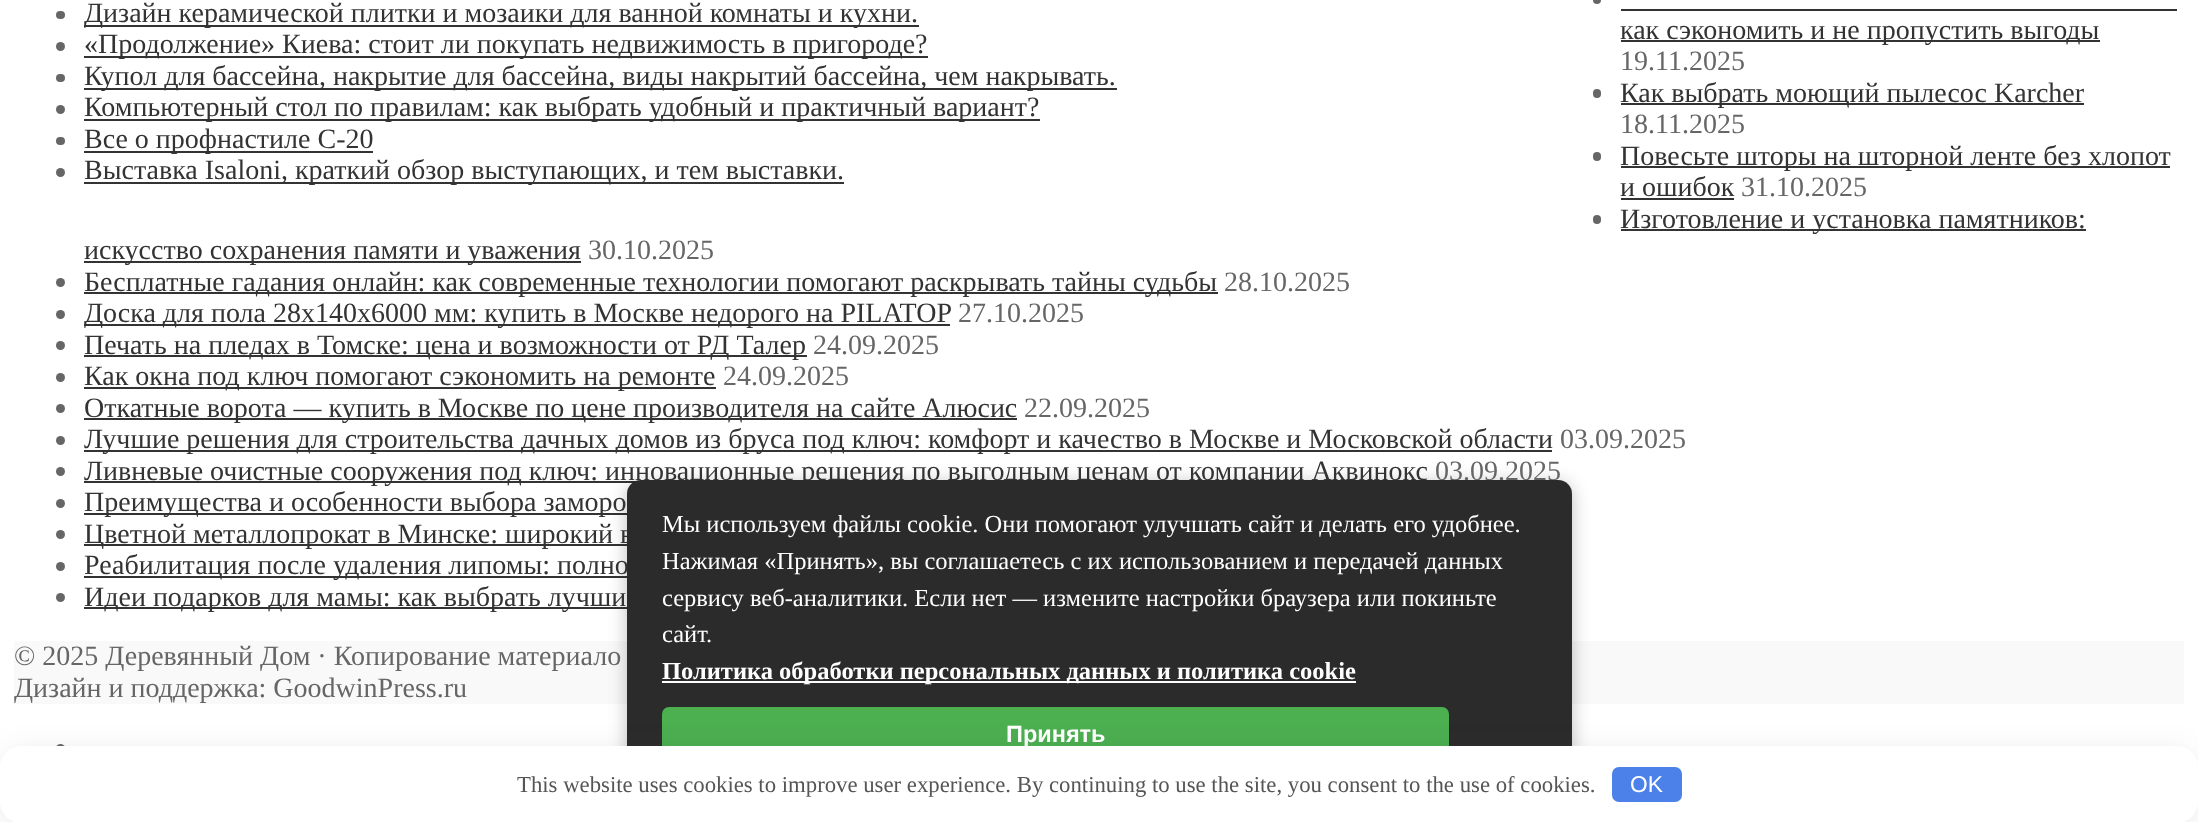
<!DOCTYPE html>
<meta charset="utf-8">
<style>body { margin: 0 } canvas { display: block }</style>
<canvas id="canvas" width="2198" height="822"></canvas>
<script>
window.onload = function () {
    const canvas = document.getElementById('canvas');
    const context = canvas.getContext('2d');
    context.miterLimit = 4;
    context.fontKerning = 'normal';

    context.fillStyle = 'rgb(255, 255, 255)';
    context.fillRect(0, 0, 2198, 822);
    context.fillStyle = 'rgb(102, 102, 102)';
    context.beginPath();
    context.roundRect(56, 11, 9, 8, 4);
    context.fill();
    context.fillStyle = 'rgb(51, 51, 51)';
    context.fillRect(84, 25, 835, 2);
    context.fillStyle = 'rgb(102, 102, 102)';
    context.beginPath();
    context.arc(60.5, 46.5, 4.5, 0, 2 * Math.PI);
    context.fill();
    context.fillStyle = 'rgb(51, 51, 51)';
    context.fillRect(84, 56, 844, 2);
    context.fillStyle = 'rgb(102, 102, 102)';
    context.beginPath();
    context.roundRect(56, 74, 9, 8, 4);
    context.fill();
    context.fillStyle = 'rgb(51, 51, 51)';
    context.fillRect(84, 88, 1033, 2);
    context.fillStyle = 'rgb(102, 102, 102)';
    context.beginPath();
    context.arc(60.5, 109.5, 4.5, 0, 2 * Math.PI);
    context.fill();
    context.fillStyle = 'rgb(51, 51, 51)';
    context.fillRect(84, 119, 956, 2);
    context.fillStyle = 'rgb(102, 102, 102)';
    context.beginPath();
    context.roundRect(56, 137, 9, 8, 4);
    context.fill();
    context.fillStyle = 'rgb(51, 51, 51)';
    context.fillRect(84, 151, 289, 2);
    context.fillStyle = 'rgb(102, 102, 102)';
    context.beginPath();
    context.arc(60.5, 172.5, 4.5, 0, 2 * Math.PI);
    context.fill();
    context.fillStyle = 'rgb(51, 51, 51)';
    context.fillRect(84, 182, 760, 2);
    context.fillStyle = 'rgb(102, 102, 102)';
    context.beginPath();
    context.arc(1597, 0, 4, 0, 2 * Math.PI);
    context.fill();
    context.fillStyle = 'rgb(51, 51, 51)';
    context.fillRect(1621, 9, 556, 2);
    context.fillRect(1621, 40, 479, 2);
    context.fillStyle = 'rgb(102, 102, 102)';
    context.beginPath();
    context.roundRect(1593, 89, 8, 9, 4);
    context.fill();
    context.fillStyle = 'rgb(51, 51, 51)';
    context.fillRect(1621, 103, 463, 2);
    context.fillStyle = 'rgb(102, 102, 102)';
    context.beginPath();
    context.roundRect(1593, 152, 8, 9, 4);
    context.fill();
    context.fillStyle = 'rgb(51, 51, 51)';
    context.fillRect(1621, 166, 549, 2);
    context.fillRect(1621, 198, 113, 2);
    context.fillStyle = 'rgb(102, 102, 102)';
    context.beginPath();
    context.roundRect(1593, 215, 8, 9, 4);
    context.fill();
    context.fillStyle = 'rgb(51, 51, 51)';
    context.fillRect(1621, 229, 465, 2);
    context.fillRect(84, 261, 497, 2);
    context.fillStyle = 'rgb(102, 102, 102)';
    context.beginPath();
    context.arc(60.5, 282.5, 4.5, 0, 2 * Math.PI);
    context.fill();
    context.fillStyle = 'rgb(51, 51, 51)';
    context.fillRect(84, 292, 1134, 2);
    context.fillStyle = 'rgb(102, 102, 102)';
    context.beginPath();
    context.arc(60.5, 314.5, 4.5, 0, 2 * Math.PI);
    context.fill();
    context.fillStyle = 'rgb(51, 51, 51)';
    context.fillRect(84, 324, 866, 2);
    context.fillStyle = 'rgb(102, 102, 102)';
    context.beginPath();
    context.arc(60.5, 345.5, 4.5, 0, 2 * Math.PI);
    context.fill();
    context.fillStyle = 'rgb(51, 51, 51)';
    context.fillRect(84, 355, 723, 2);
    context.fillStyle = 'rgb(102, 102, 102)';
    context.beginPath();
    context.arc(60.5, 377.5, 4.5, 0, 2 * Math.PI);
    context.fill();
    context.fillStyle = 'rgb(51, 51, 51)';
    context.fillRect(84, 387, 632, 2);
    context.fillStyle = 'rgb(102, 102, 102)';
    context.beginPath();
    context.arc(60.5, 408.5, 4.5, 0, 2 * Math.PI);
    context.fill();
    context.fillStyle = 'rgb(51, 51, 51)';
    context.fillRect(84, 418, 933, 2);
    context.fillStyle = 'rgb(102, 102, 102)';
    context.beginPath();
    context.arc(60.5, 440.5, 4.5, 0, 2 * Math.PI);
    context.fill();
    context.fillStyle = 'rgb(51, 51, 51)';
    context.fillRect(84, 450, 1468, 2);
    context.fillStyle = 'rgb(102, 102, 102)';
    context.beginPath();
    context.arc(60.5, 471.5, 4.5, 0, 2 * Math.PI);
    context.fill();
    context.fillStyle = 'rgb(51, 51, 51)';
    context.fillRect(84, 481, 552, 2);
    context.fillStyle = 'rgb(102, 102, 102)';
    context.beginPath();
    context.arc(60.5, 503.5, 4.5, 0, 2 * Math.PI);
    context.fill();
    context.fillStyle = 'rgb(51, 51, 51)';
    context.fillRect(84, 513, 543, 2);
    context.fillStyle = 'rgb(102, 102, 102)';
    context.beginPath();
    context.arc(60.5, 534.5, 4.5, 0, 2 * Math.PI);
    context.fill();
    context.fillStyle = 'rgb(51, 51, 51)';
    context.fillRect(84, 544, 543, 2);
    context.fillStyle = 'rgb(102, 102, 102)';
    context.beginPath();
    context.arc(60.5, 566.5, 4.5, 0, 2 * Math.PI);
    context.fill();
    context.fillStyle = 'rgb(51, 51, 51)';
    context.fillRect(84, 576, 543, 2);
    context.fillStyle = 'rgb(102, 102, 102)';
    context.beginPath();
    context.arc(60.5, 597.5, 4.5, 0, 2 * Math.PI);
    context.fill();
    context.fillStyle = 'rgb(51, 51, 51)';
    context.fillRect(84, 607, 543, 2);
    context.fillStyle = 'rgb(249, 249, 249)';
    context.fillRect(14, 641, 2170, 63);
    context.fillStyle = 'rgba(0, 0, 0, 0.25)';
    context.filter = 'blur(9px)';
    context.beginPath();
    context.roundRect(627, 483, 945, 308, 14);
    context.fill();
    context.filter = 'none';
    context.fillStyle = 'rgb(102, 102, 102)';
    context.beginPath();
    context.arc(60.5, 748.5, 4.5, 0, 2 * Math.PI);
    context.fill();
    context.font = '28px Liberation Serif';
    context.fillStyle = 'rgb(51, 51, 51)';
    context.fillText('Дизайн керамической плитки и мозаики для ванной комнаты и кухни.', 84, 22);
    context.fillText('«Продолжение» Киева: стоит ли покупать недвижимость в пригороде?', 84, 53);
    context.fillText('Купол для бассейна, накрытие для бассейна, виды накрытий бассейна, чем накрывать.', 84, 85);
    context.fillText('Компьютерный стол по правилам: как выбрать удобный и практичный вариант?', 84, 116);
    context.fillText('Все о профнастиле С-20', 84, 148);
    context.fillText('Выставка Isaloni, краткий обзор выступающих, и тем выставки.', 84, 179);
    context.fillText('как сэкономить и не пропустить выгоды', 1620, 39);
    context.fillStyle = 'rgb(102, 102, 102)';
    context.fillText('19.11.2025', 1620, 70);
    context.fillStyle = 'rgb(51, 51, 51)';
    context.fillText('Как выбрать моющий пылесос Karcher', 1620, 102);
    context.fillStyle = 'rgb(102, 102, 102)';
    context.fillText('18.11.2025', 1620, 133);
    context.fillStyle = 'rgb(51, 51, 51)';
    context.fillText('Повесьте шторы на шторной ленте без хлопот', 1620, 165);
    context.fillText('и ошибок', 1620, 196);
    context.fillStyle = 'rgb(102, 102, 102)';
    context.fillText('31.10.2025', 1741, 196);
    context.fillStyle = 'rgb(51, 51, 51)';
    context.fillText('Изготовление и установка памятников:', 1620, 228);
    context.fillText('искусство сохранения памяти и уважения', 84, 259);
    context.fillStyle = 'rgb(102, 102, 102)';
    context.fillText('30.10.2025', 588, 259);
    context.fillStyle = 'rgb(51, 51, 51)';
    context.fillText('Бесплатные гадания онлайн: как современные технологии помогают раскрывать тайны судьбы', 84, 291);
    context.fillStyle = 'rgb(102, 102, 102)';
    context.fillText('28.10.2025', 1224, 291);
    context.fillStyle = 'rgb(51, 51, 51)';
    context.fillText('Доска для пола 28х140х6000 мм: купить в Москве недорого на PILATOP', 84, 322);
    context.fillStyle = 'rgb(102, 102, 102)';
    context.fillText('27.10.2025', 958, 322);
    context.fillStyle = 'rgb(51, 51, 51)';
    context.fillText('Печать на пледах в Томске: цена и возможности от РД Талер', 84, 354);
    context.fillStyle = 'rgb(102, 102, 102)';
    context.fillText('24.09.2025', 813, 354);
    context.fillStyle = 'rgb(51, 51, 51)';
    context.fillText('Как окна под ключ помогают сэкономить на ремонте', 84, 385);
    context.fillStyle = 'rgb(102, 102, 102)';
    context.fillText('24.09.2025', 723, 385);
    context.fillStyle = 'rgb(51, 51, 51)';
    context.fillText('Откатные ворота — купить в Москве по цене производителя на сайте Алюсис', 84, 417);
    context.fillStyle = 'rgb(102, 102, 102)';
    context.fillText('22.09.2025', 1024, 417);
    context.fillStyle = 'rgb(51, 51, 51)';
    context.fillText('Лучшие решения для строительства дачных домов из бруса под ключ: комфорт и качество в Москве и Московской области', 84, 448);
    context.fillStyle = 'rgb(102, 102, 102)';
    context.fillText('03.09.2025', 1560, 448);
    context.fillStyle = 'rgb(51, 51, 51)';
    context.fillText('Ливневые очистные сооружения под ключ: инновационные решения по выгодным ценам от компании Аквинокс', 84, 480);
    context.fillStyle = 'rgb(102, 102, 102)';
    context.fillText('03.09.2025', 1435, 480);
    context.fillStyle = 'rgb(51, 51, 51)';
    context.fillText('Преимущества и особенности выбора заморо', 84, 511);
    context.fillText('Цветной металлопрокат в Минске: широкий в', 84, 543);
    context.fillText('Реабилитация после удаления липомы: полно', 84, 574);
    context.fillText('Идеи подарков для мамы: как выбрать лучши', 84, 606);
    context.fillStyle = 'rgb(102, 102, 102)';
    context.fillText('© 2025 Деревянный Дом · Копирование материало', 14, 665);
    context.fillText('Дизайн и поддержка: GoodwinPress.ru', 14, 697);
    context.fillStyle = 'rgb(43, 43, 43)';
    context.beginPath();
    context.roundRect(627, 480, 945, 308, 14);
    context.fill();
    context.font = '24.5px Liberation Serif';
    context.fillStyle = 'rgb(255, 255, 255)';
    context.fillText('Мы используем файлы cookie. Они помогают улучшать сайт и делать его удобнее.', 662, 532);
    context.fillText('Нажимая «Принять», вы соглашаетесь с их использованием и передачей данных', 662, 569);
    context.fillText('сервису веб-аналитики. Если нет — измените настройки браузера или покиньте', 662, 606);
    context.fillText('сайт.', 662, 642);
    context.fillStyle = 'rgb(254, 254, 254)';
    context.fillRect(662, 681, 694, 2);
    context.font = 'bold 24.5px Liberation Serif';
    context.fillStyle = 'rgb(255, 255, 255)';
    context.fillText('Политика обработки персональных данных и политика cookie', 662, 679);
    context.fillStyle = 'rgb(76, 175, 80)';
    context.beginPath();
    context.roundRect(662, 707, 787, 54, 7);
    context.fill();
    context.font = 'bold 23.5px Liberation Sans';
    context.fillStyle = 'rgb(255, 255, 255)';
    context.fillText('Принять', 1006, 742);
    context.fillStyle = 'rgba(41, 44, 56, 0.2)';
    context.filter = 'blur(17.5px)';
    context.beginPath();
    context.roundRect(9, 760, 2180, 59, 12);
    context.fill();
    context.filter = 'none';
    context.fillStyle = 'rgb(255, 255, 255)';
    context.beginPath();
    context.roundRect(0, 746, 2198, 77, 21);
    context.fill();
    context.font = '22.75px Liberation Serif';
    context.fillStyle = 'rgb(85, 85, 85)';
    context.fillText('This website uses cookies to improve user experience. By continuing to use the site, you consent to the use of cookies.', 517, 792);
    context.fillStyle = 'rgb(75, 129, 232)';
    context.beginPath();
    context.roundRect(1612, 767, 70, 35, 7);
    context.fill();
    context.font = '22.75px Liberation Sans';
    context.fillStyle = 'rgb(255, 255, 255)';
    context.fillText('OK', 1630, 792);
};
</script>
